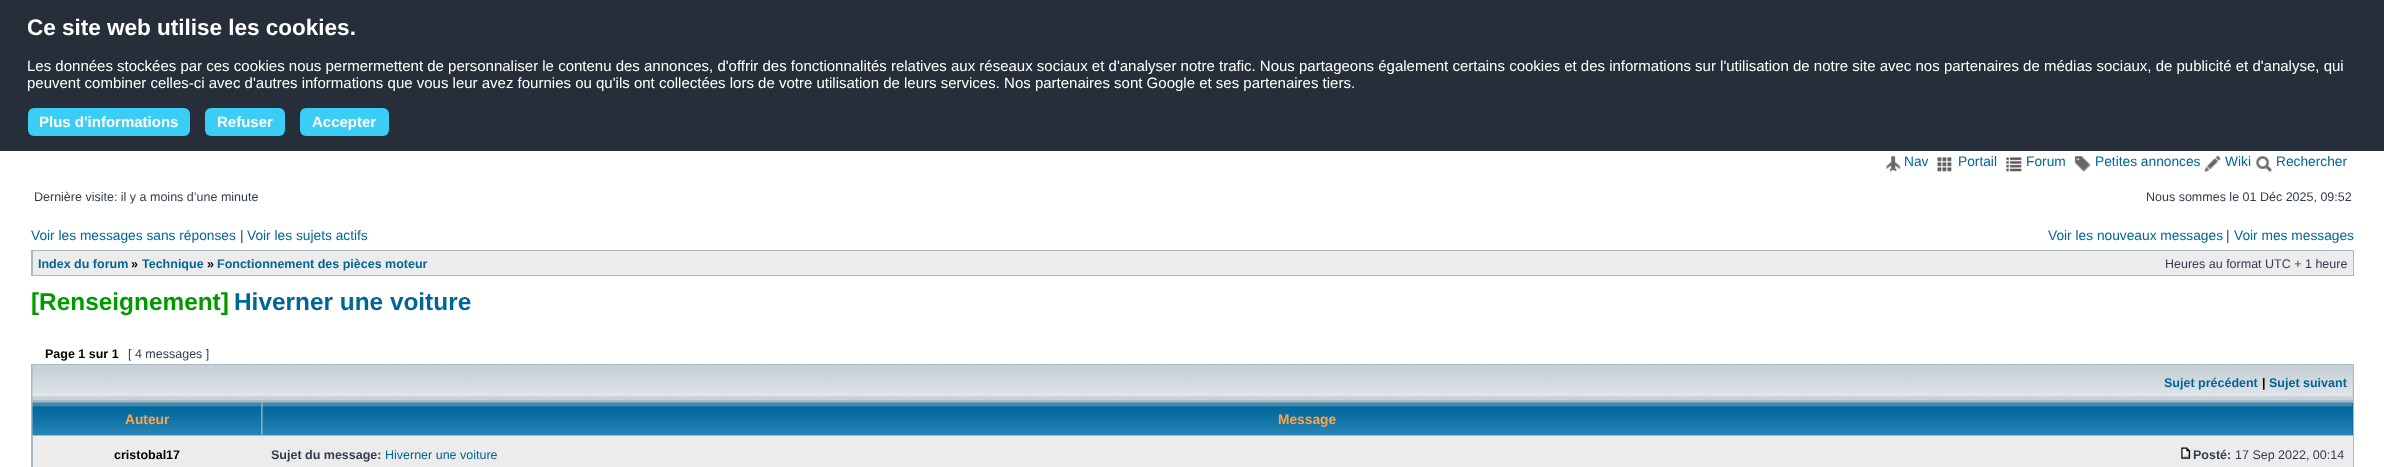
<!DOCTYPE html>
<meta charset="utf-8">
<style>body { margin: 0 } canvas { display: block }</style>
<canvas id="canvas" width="2384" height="467"></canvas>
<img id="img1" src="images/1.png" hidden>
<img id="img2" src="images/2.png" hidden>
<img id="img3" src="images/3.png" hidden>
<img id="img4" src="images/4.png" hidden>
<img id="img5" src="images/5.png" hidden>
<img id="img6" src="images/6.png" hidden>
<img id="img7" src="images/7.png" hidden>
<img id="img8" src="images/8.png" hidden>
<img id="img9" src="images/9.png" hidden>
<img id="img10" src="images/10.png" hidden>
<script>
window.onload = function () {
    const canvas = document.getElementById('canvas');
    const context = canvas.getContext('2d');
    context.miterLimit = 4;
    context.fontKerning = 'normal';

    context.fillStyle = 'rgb(255, 255, 255)';
    context.fillRect(0, 0, 2384, 467);
    context.fillStyle = 'rgb(37, 46, 57)';
    context.fillRect(0, 0, 2384, 151);
    context.fillStyle = 'rgb(58, 205, 246)';
    context.beginPath();
    context.roundRect(28, 108, 162, 28, 6);
    context.fill();
    context.beginPath();
    context.roundRect(205, 108, 80, 28, 6);
    context.fill();
    context.beginPath();
    context.roundRect(300, 108, 89, 28, 6);
    context.fill();
    context.drawImage(document.getElementById('img1'), 1886, 156, 15, 16);
    context.drawImage(document.getElementById('img2'), 1937, 157, 15, 15);
    context.drawImage(document.getElementById('img3'), 2006, 157, 16, 15);
    context.drawImage(document.getElementById('img4'), 2074, 156, 17, 16);
    context.drawImage(document.getElementById('img5'), 2204, 155, 17, 18);
    context.drawImage(document.getElementById('img6'), 2256, 156, 17, 17);
    context.fillStyle = 'rgb(169, 184, 194)';
    context.fillRect(31, 250, 2323, 26);
    context.fillStyle = 'rgb(236, 236, 236)';
    context.fillRect(33, 251, 2320, 24);
    context.fillStyle = 'rgb(169, 184, 194)';
    context.fillRect(31, 364, 2323, 103);
    context.fillStyle = 'rgb(199, 208, 215)';
    context.fillRect(2352, 365, 1, 35);
    context.drawImage(document.getElementById('img7'), 32, 365, 2321, 35);
    context.drawImage(document.getElementById('img8'), 32, 402, 230, 33);
    context.fillStyle = 'rgb(0, 102, 153)';
    context.fillRect(2352, 403, 1, 32);
    context.drawImage(document.getElementById('img9'), 262, 402, 2091, 33);
    context.fillStyle = 'rgb(236, 236, 236)';
    context.fillRect(33, 436, 2320, 31);
    context.drawImage(document.getElementById('img10'), 2181, 447, 10, 12);
    context.font = 'bold 22.5px Liberation Sans';
    context.fillStyle = 'rgb(255, 255, 255)';
    context.fillText('Ce site web utilise les cookies.', 27, 35);
    context.font = '15px Liberation Sans';
    context.fillText('Les données stockées par ces cookies nous permermettent de personnaliser le contenu des annonces, d\'offrir des fonctionnalités relatives aux réseaux sociaux et d\'analyser notre trafic. Nous partageons également certains cookies et des informations sur l\'utilisation de notre site avec nos partenaires de médias sociaux, de publicité et d\'analyse, qui', 27, 71);
    context.fillText('peuvent combiner celles-ci avec d\'autres informations que vous leur avez fournies ou qu\'ils ont collectées lors de votre utilisation de leurs services. Nos partenaires sont Google et ses partenaires tiers.', 27, 88);
    context.font = 'bold 15px Liberation Sans';
    context.fillText('Plus d\'informations', 39, 127);
    context.fillText('Refuser', 217, 127);
    context.fillText('Accepter', 312, 127);
    context.font = '13.75px Liberation Sans';
    context.fillStyle = 'rgb(0, 101, 151)';
    context.fillText('Nav', 1904, 166);
    context.fillText('Portail', 1958, 166);
    context.fillText('Forum', 2026, 166);
    context.fillText('Petites annonces', 2095, 166);
    context.fillText('Wiki', 2225, 166);
    context.fillText('Rechercher', 2276, 166);
    context.font = '12.5px Liberation Sans';
    context.fillStyle = 'rgb(50, 61, 79)';
    context.fillText('Dernière visite: il y a moins d’une minute', 34, 201);
    context.fillText('Nous sommes le 01 Déc 2025, 09:52', 2146, 201);
    context.font = '13.75px Liberation Sans';
    context.fillStyle = 'rgb(0, 101, 151)';
    context.fillText('Voir les messages sans réponses', 31, 240);
    context.fillStyle = 'rgb(50, 61, 79)';
    context.fillText('|', 240, 240);
    context.fillStyle = 'rgb(0, 101, 151)';
    context.fillText('Voir les sujets actifs', 247, 240);
    context.fillText('Voir les nouveaux messages', 2048, 240);
    context.fillStyle = 'rgb(50, 61, 79)';
    context.fillText('|', 2226, 240);
    context.fillStyle = 'rgb(0, 101, 151)';
    context.fillText('Voir mes messages', 2234, 240);
    context.font = 'bold 12.5px Liberation Sans';
    context.fillText('Index du forum', 38, 268);
    context.fillStyle = 'rgb(0, 0, 0)';
    context.fillText('»', 131, 268);
    context.fillStyle = 'rgb(0, 101, 151)';
    context.fillText('Technique', 142, 268);
    context.fillStyle = 'rgb(0, 0, 0)';
    context.fillText('»', 207, 268);
    context.fillStyle = 'rgb(0, 101, 151)';
    context.fillText('Fonctionnement des pièces moteur', 217, 268);
    context.font = '12.5px Liberation Sans';
    context.fillStyle = 'rgb(50, 61, 79)';
    context.fillText('Heures au format UTC + 1 heure', 2165, 268);
    context.font = 'bold 24.4px Liberation Sans';
    context.fillStyle = 'rgb(0, 153, 0)';
    context.fillText('[Renseignement]', 31, 310);
    context.fillStyle = 'rgb(0, 101, 151)';
    context.fillText('Hiverner une voiture', 234, 310);
    context.font = 'bold 12.5px Liberation Sans';
    context.fillStyle = 'rgb(0, 0, 0)';
    context.fillText('Page 1 sur 1', 45, 358);
    context.font = '12.5px Liberation Sans';
    context.fillStyle = 'rgb(50, 61, 79)';
    context.fillText('[ 4 messages ]', 128, 358);
    context.font = 'bold 12.5px Liberation Sans';
    context.fillStyle = 'rgb(0, 101, 151)';
    context.fillText('Sujet précédent', 2164, 387);
    context.fillStyle = 'rgb(0, 0, 0)';
    context.fillText('|', 2262, 387);
    context.fillStyle = 'rgb(0, 101, 151)';
    context.fillText('Sujet suivant', 2269, 387);
    context.font = 'bold 13.75px Liberation Sans';
    context.fillStyle = 'rgb(255, 163, 79)';
    context.fillText('Auteur', 125, 424);
    context.fillText('Message', 1278, 424);
    context.font = 'bold 12.5px Liberation Sans';
    context.fillStyle = 'rgb(0, 0, 0)';
    context.fillText('cristobal17', 114, 459);
    context.fillStyle = 'rgb(50, 61, 79)';
    context.fillText('Sujet du message:', 271, 459);
    context.font = '12.5px Liberation Sans';
    context.fillStyle = 'rgb(0, 101, 151)';
    context.fillText('Hiverner une voiture', 385, 459);
    context.font = 'bold 12.5px Liberation Sans';
    context.fillStyle = 'rgb(50, 61, 79)';
    context.fillText('Posté:', 2193, 459);
    context.font = '12.5px Liberation Sans';
    context.fillText('17 Sep 2022, 00:14', 2235, 459);
};
</script>
